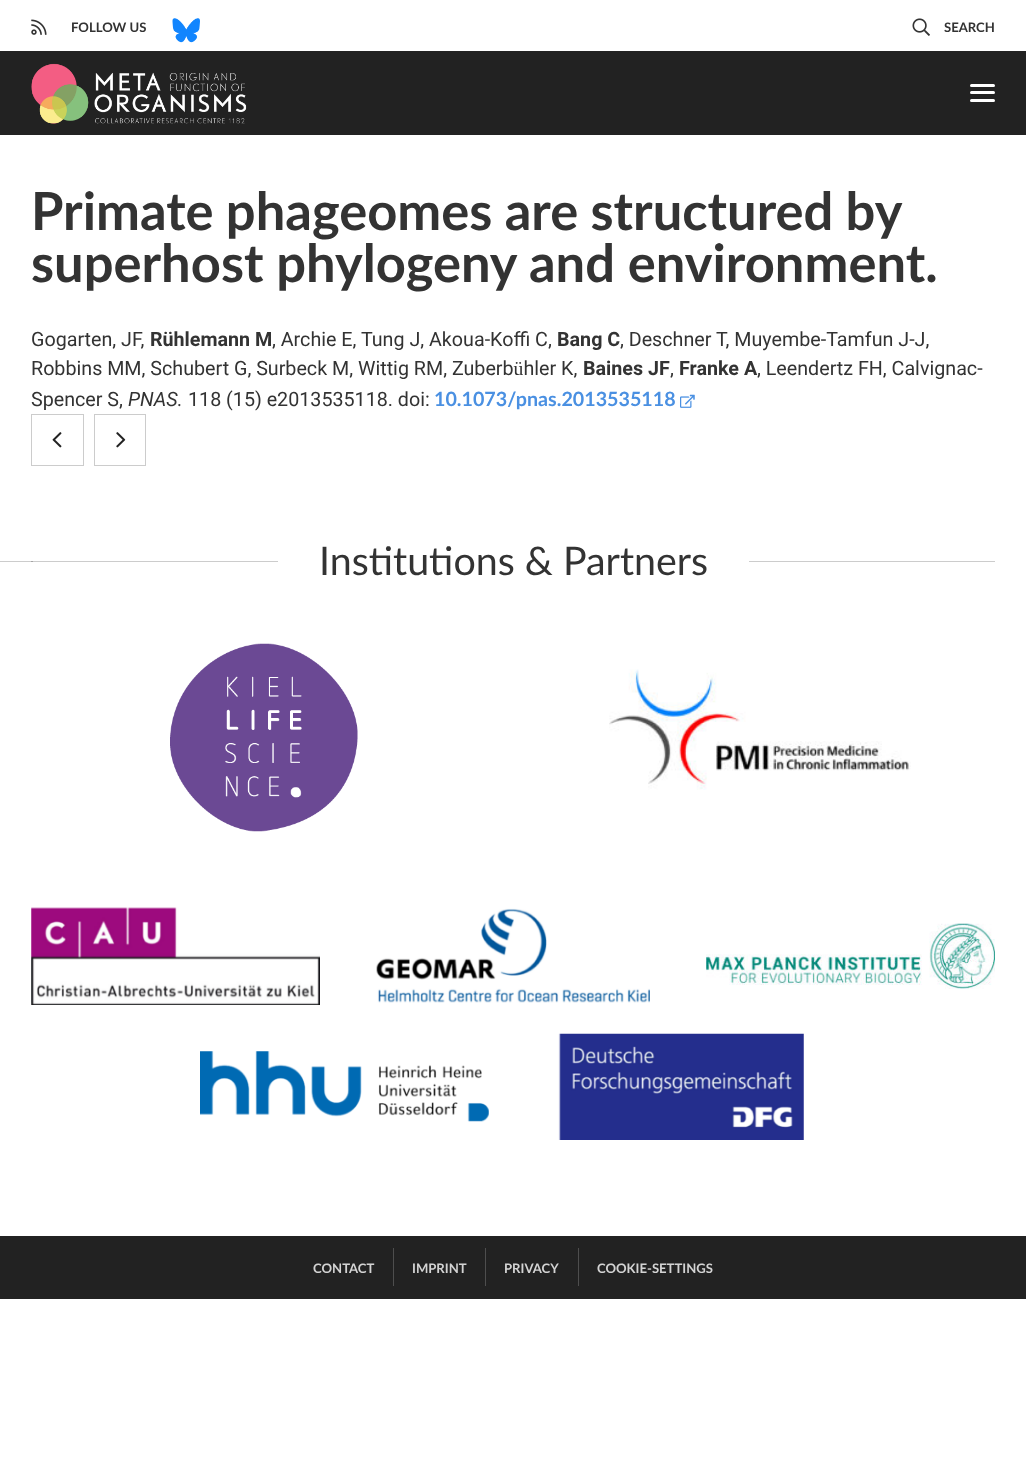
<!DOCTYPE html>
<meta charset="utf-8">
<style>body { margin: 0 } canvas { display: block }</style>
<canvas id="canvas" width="1026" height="1460"></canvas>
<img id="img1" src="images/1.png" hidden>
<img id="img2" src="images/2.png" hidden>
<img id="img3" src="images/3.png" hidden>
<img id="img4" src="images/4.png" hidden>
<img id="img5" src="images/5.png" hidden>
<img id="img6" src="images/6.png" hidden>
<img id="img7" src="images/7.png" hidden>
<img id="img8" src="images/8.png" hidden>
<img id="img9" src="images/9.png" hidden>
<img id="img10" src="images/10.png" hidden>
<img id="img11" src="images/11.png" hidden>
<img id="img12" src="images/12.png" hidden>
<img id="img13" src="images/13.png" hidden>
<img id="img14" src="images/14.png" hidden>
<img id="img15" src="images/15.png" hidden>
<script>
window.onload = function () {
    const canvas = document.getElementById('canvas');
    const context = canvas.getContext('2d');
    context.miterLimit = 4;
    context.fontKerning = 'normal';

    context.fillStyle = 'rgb(255, 255, 255)';
    context.fillRect(0, 0, 1026, 1460);
    context.fillStyle = 'rgb(204, 204, 204)';
    context.fillRect(0, 561, 995, 1);
    context.drawImage(document.getElementById('img1'), 31, 19, 16, 16);
    context.drawImage(document.getElementById('img2'), 172, 18, 28, 25);
    context.drawImage(document.getElementById('img3'), 912, 18, 18, 18);
    context.fillStyle = 'rgb(34, 34, 34)';
    context.fillRect(0, 51, 1026, 84);
    context.drawImage(document.getElementById('img4'), 31, 63, 216, 61);
    context.drawImage(document.getElementById('img5'), 50, 123, 8, 1);
    context.fillStyle = 'rgb(255, 255, 255)';
    context.beginPath();
    context.roundRect(970, 91, 25, 3, 1.5);
    context.fill();
    context.beginPath();
    context.roundRect(970, 84, 25, 3, 1.5);
    context.fill();
    context.beginPath();
    context.roundRect(970, 99, 25, 3, 1.5);
    context.fill();
    context.drawImage(document.getElementById('img6'), 680, 394, 15, 14);
    context.strokeStyle = 'rgb(204, 204, 204)';
    context.strokeRect(31.5, 414.5, 52, 51);
    context.drawImage(document.getElementById('img7'), 52, 432, 10, 16);
    context.strokeRect(94.5, 414.5, 51, 51);
    context.drawImage(document.getElementById('img8'), 116, 432, 10, 16);
    context.fillStyle = 'rgb(163, 163, 163)';
    context.fillRect(31, 561, 2, 1);
    context.fillStyle = 'rgb(255, 255, 255)';
    context.fillRect(278, 561, 471, 1);
    context.drawImage(document.getElementById('img9'), 170, 643, 188, 189);
    context.drawImage(document.getElementById('img10'), 609, 669, 302, 121);
    context.drawImage(document.getElementById('img11'), 31, 907, 289, 98);
    context.drawImage(document.getElementById('img12'), 376, 908, 274, 95);
    context.drawImage(document.getElementById('img13'), 706, 923, 289, 66);
    context.drawImage(document.getElementById('img14'), 200, 1051, 289, 71);
    context.drawImage(document.getElementById('img15'), 558, 1033, 246, 107);
    context.fillStyle = 'rgb(34, 34, 34)';
    context.fillRect(0, 1236, 1026, 63);
    context.fillStyle = 'rgb(78, 78, 78)';
    context.fillRect(393, 1248, 1, 38);
    context.fillRect(485, 1248, 1, 38);
    context.fillRect(578, 1248, 1, 38);
    context.font = 'bold 13.1px Lato';
    context.fillStyle = 'rgb(51, 51, 51)';
    context.fillText('FOLLOW US', 71, 32);
    context.fillText('SEARCH', 944, 32);
    context.wordSpacing = '-0.5px';
    context.font = 'bold 52.5px Lato';
    context.fillText('Primate phageomes are structured by', 31, 230);
    context.wordSpacing = '0px';
    context.fillText('superhost phylogeny and environment.', 31, 282);
    context.font = '19.7px Roboto';
    context.fillText('Gogarten, JF,', 31, 346);
    context.font = 'bold 19.7px Roboto';
    context.fillText('Rühlemann M', 150, 346);
    context.font = '19.7px Roboto';
    context.fillText(', Archie E, Tung J, Akoua-Koffi C,', 272, 346);
    context.font = 'bold 19.7px Roboto';
    context.fillText('Bang C', 557, 346);
    context.font = '19.7px Roboto';
    context.fillText(', Deschner T, Muyembe-Tamfun J-J,', 620, 346);
    context.fillText('Robbins MM, Schubert G, Surbeck M, Wittig RM, Zuberbühler K,', 31, 375);
    context.font = 'bold 19.7px Roboto';
    context.fillText('Baines JF', 583, 375);
    context.font = '19.7px Roboto';
    context.fillText(',', 670, 375);
    context.font = 'bold 19.7px Roboto';
    context.fillText('Franke A', 679, 375);
    context.font = '19.7px Roboto';
    context.fillText(', Leendertz FH, Calvignac-', 757, 375);
    context.fillText('Spencer S,', 31, 406);
    context.font = 'italic 19.7px Roboto';
    context.fillText('PNAS.', 128, 406);
    context.font = '19.7px Roboto';
    context.fillText('118 (15) e2013535118. doi:', 188, 406);
    context.font = 'bold 19.7px Lato';
    context.fillStyle = 'rgb(74, 144, 226)';
    context.fillText('10.1073/pnas.2013535118', 434, 406);
    context.font = '39.4px Lato';
    context.fillStyle = 'rgb(51, 51, 51)';
    context.fillText('Institutions & Partners', 319, 575);
    context.font = 'bold 13.1px Lato';
    context.fillStyle = 'rgb(211, 211, 211)';
    context.fillText('CONTACT', 313, 1273);
    context.fillText('IMPRINT', 412, 1273);
    context.fillText('PRIVACY', 504, 1273);
    context.fillText('COOKIE-SETTINGS', 597, 1273);
};
</script>
